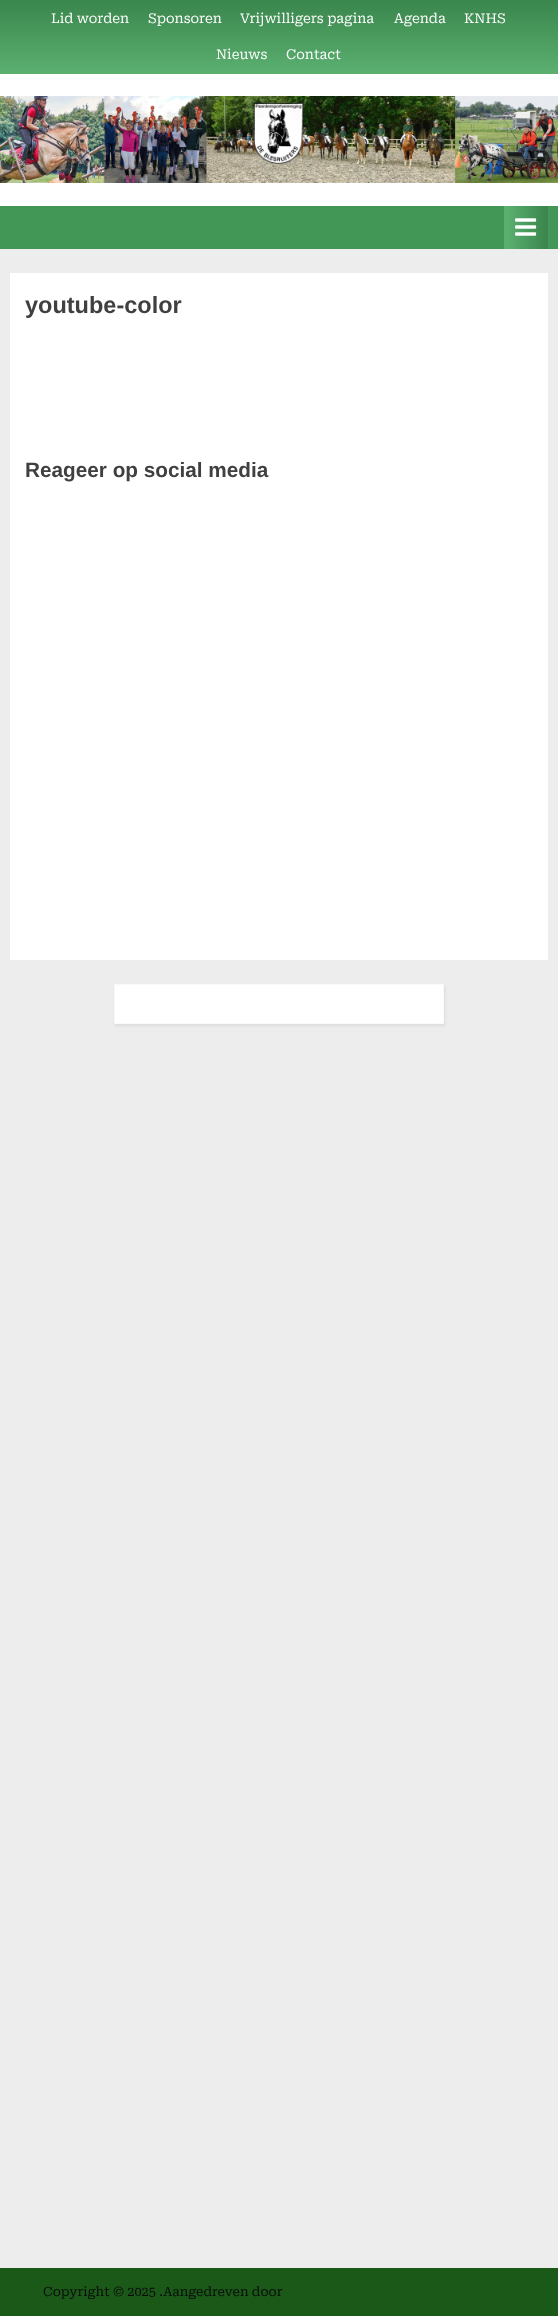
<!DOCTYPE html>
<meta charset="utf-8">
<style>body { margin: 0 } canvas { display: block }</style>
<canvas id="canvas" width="558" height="2316"></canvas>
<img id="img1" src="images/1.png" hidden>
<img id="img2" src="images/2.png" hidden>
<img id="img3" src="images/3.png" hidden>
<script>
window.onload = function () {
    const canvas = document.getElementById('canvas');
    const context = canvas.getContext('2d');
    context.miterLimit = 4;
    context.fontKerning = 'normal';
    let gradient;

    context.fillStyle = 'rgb(237, 237, 237)';
    context.fillRect(0, 0, 558, 2316);
    gradient = context.createLinearGradient(279, 74, 279, 0);
    gradient.addColorStop(0, 'rgb(91, 176, 112)');
    gradient.addColorStop(1, 'rgb(58, 134, 77)');
    context.fillStyle = gradient;
    context.fillRect(0, 0, 558, 74);
    context.fillStyle = 'rgb(255, 255, 255)';
    context.fillRect(0, 74, 558, 132);
    context.drawImage(document.getElementById('img1'), 0, 96, 558, 87);
    context.drawImage(document.getElementById('img2'), 253, 102, 51, 62);
    context.fillStyle = 'rgb(66, 150, 86)';
    context.fillRect(0, 206, 558, 43);
    gradient = context.createLinearGradient(426, 228, 506, 228);
    gradient.addColorStop(0, 'rgb(91, 176, 112)');
    gradient.addColorStop(0.51, 'rgb(58, 134, 77)');
    gradient.addColorStop(1, 'rgb(91, 176, 112)');
    context.fillStyle = gradient;
    context.fillRect(504, 206, 2, 43);
    gradient = context.createLinearGradient(506, 228, 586, 228);
    gradient.addColorStop(0, 'rgb(91, 176, 112)');
    gradient.addColorStop(0.51, 'rgb(58, 134, 77)');
    gradient.addColorStop(1, 'rgb(91, 176, 112)');
    context.fillStyle = gradient;
    context.fillRect(506, 206, 42, 43);
    context.drawImage(document.getElementById('img3'), 515, 218, 22, 18);
    context.fillStyle = 'rgb(255, 255, 255)';
    context.fillRect(10, 273, 538, 687);
    context.fillStyle = 'rgba(0, 0, 0, 0.07)';
    context.filter = 'blur(1.5px)';
    context.beginPath();
    context.rect(115, 986, 330, 40);
    context.fill();
    context.filter = 'none';
    context.fillStyle = 'rgb(255, 255, 255)';
    context.beginPath();
    context.rect(114.5, 984.5, 329, 39);
    context.fill();
    context.strokeStyle = 'rgb(250, 250, 250)';
    context.stroke();
    context.fillStyle = 'rgb(26, 89, 24)';
    context.fillRect(0, 2268, 558, 48);
    context.font = '13.5px Roboto Serif';
    context.fillStyle = 'rgb(255, 255, 255)';
    context.fillText('Lid worden', 51, 23);
    context.fillText('Sponsoren', 148, 23);
    context.fillText('Vrijwilligers pagina', 240, 23);
    context.fillText('Agenda', 394, 23);
    context.fillText('KNHS', 464, 23);
    context.fillText('Nieuws', 216, 59);
    context.fillText('Contact', 286, 59);
    context.font = 'bold 23.5px Liberation Sans';
    context.fillStyle = 'rgb(64, 64, 64)';
    context.fillText('youtube-color', 25, 313);
    context.font = 'bold 20.75px Liberation Sans';
    context.fillText('Reageer op social media', 25, 477);
    context.font = '12.75px Roboto Serif';
    context.fillStyle = 'rgb(10, 10, 10)';
    context.fillText('Copyright © 2025 .Aangedreven door', 43, 2296);
};
</script>
